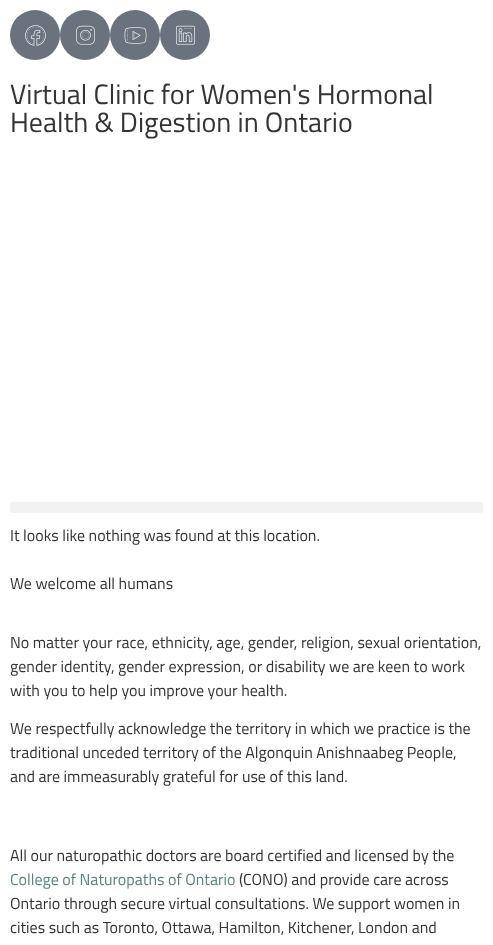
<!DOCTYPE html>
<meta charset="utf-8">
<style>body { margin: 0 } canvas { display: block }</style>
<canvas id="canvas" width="493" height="945"></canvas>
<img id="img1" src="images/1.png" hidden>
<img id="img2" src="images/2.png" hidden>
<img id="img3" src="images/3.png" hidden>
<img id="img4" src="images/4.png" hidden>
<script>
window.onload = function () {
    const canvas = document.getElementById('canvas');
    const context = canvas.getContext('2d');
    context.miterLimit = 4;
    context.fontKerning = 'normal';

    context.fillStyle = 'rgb(255, 255, 255)';
    context.fillRect(0, 0, 493, 945);
    context.fillStyle = 'rgb(105, 114, 125)';
    context.beginPath();
    context.arc(35, 35, 25, 0, 2 * Math.PI);
    context.fill();
    context.drawImage(document.getElementById('img1'), 25, 25, 21, 21);
    context.beginPath();
    context.arc(85, 35, 25, 0, 2 * Math.PI);
    context.fill();
    context.drawImage(document.getElementById('img2'), 76, 25, 19, 20);
    context.beginPath();
    context.arc(135, 35, 25, 0, 2 * Math.PI);
    context.fill();
    context.drawImage(document.getElementById('img3'), 124, 27, 23, 17);
    context.beginPath();
    context.arc(185, 35, 25, 0, 2 * Math.PI);
    context.fill();
    context.drawImage(document.getElementById('img4'), 176, 25, 19, 20);
    context.fillStyle = 'rgb(242, 242, 242)';
    context.beginPath();
    context.roundRect(10, 502, 473, 11, 3);
    context.fill();
    context.font = '28px Titillium Web';
    context.fillStyle = 'rgb(51, 51, 51)';
    context.fillText('Virtual Clinic for Women\'s Hormonal', 10, 104);
    context.fillText('Health & Digestion in Ontario', 10, 132);
    context.font = '16px Titillium Web';
    context.fillText('It looks like nothing was found at this location.', 10, 541);
    context.fillText('We welcome all humans', 10, 589);
    context.fillText('No matter your race, ethnicity, age, gender, religion, sexual orientation,', 10, 648);
    context.fillText('gender identity, gender expression, or disability we are keen to work', 10, 672);
    context.fillText('with you to help you improve your health.', 10, 696);
    context.fillText('We respectfully acknowledge the territory in which we practice is the', 10, 734);
    context.fillText('traditional unceded territory of the Algonquin Anishnaabeg People,', 10, 758);
    context.fillText('and are immeasurably grateful for use of this land.', 10, 782);
    context.fillText('All our naturopathic doctors are board certified and licensed by the', 10, 861);
    context.fillStyle = 'rgb(87, 130, 137)';
    context.fillText('College of Naturopaths of Ontario', 10, 885);
    context.fillStyle = 'rgb(51, 51, 51)';
    context.fillText('(CONO) and provide care across', 239, 885);
    context.fillText('Ontario through secure virtual consultations. We support women in', 10, 909);
    context.fillText('cities such as Toronto, Ottawa, Hamilton, Kitchener, London and', 10, 933);
};
</script>
